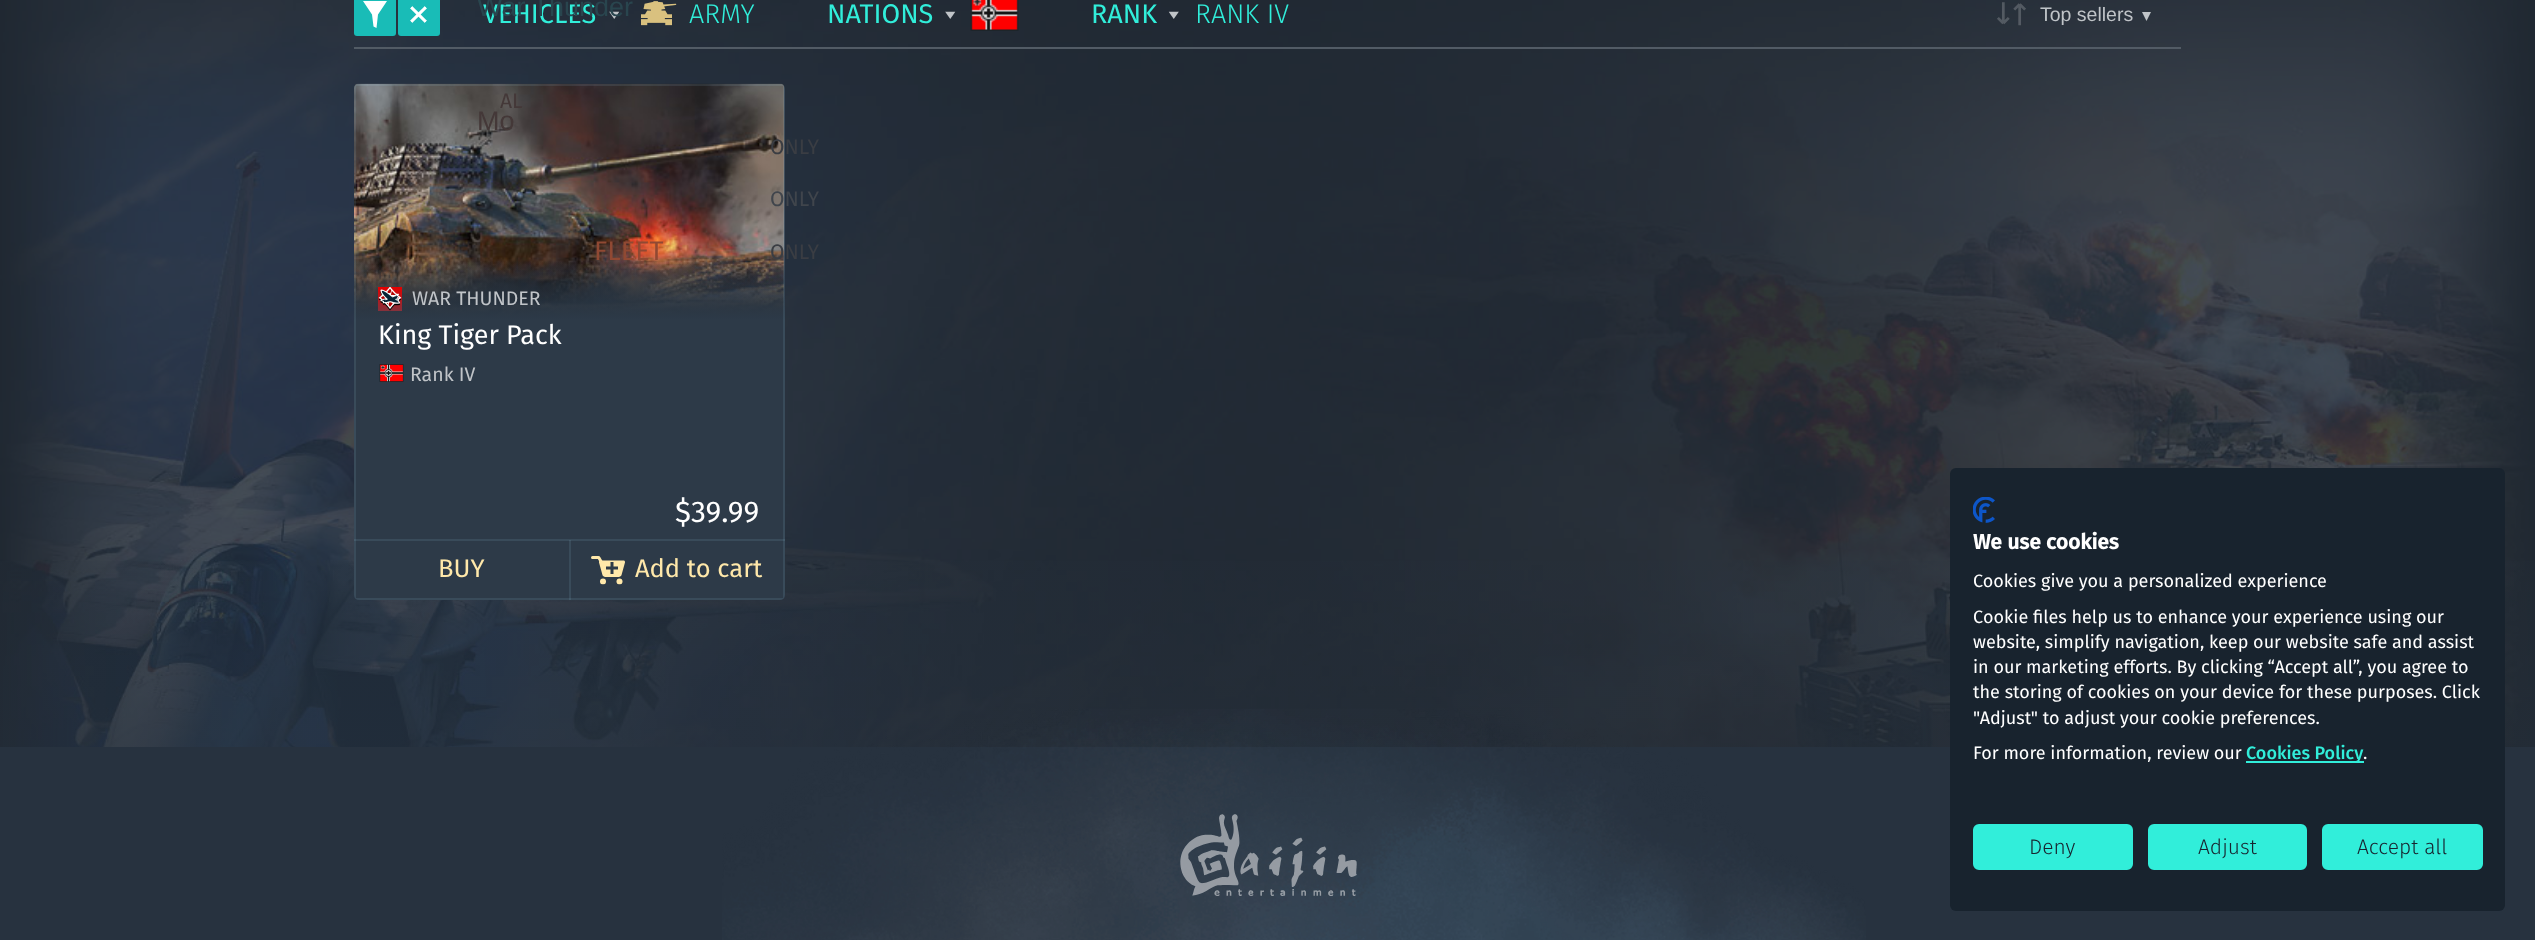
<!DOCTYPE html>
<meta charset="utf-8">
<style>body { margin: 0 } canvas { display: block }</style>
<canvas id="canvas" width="2535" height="940"></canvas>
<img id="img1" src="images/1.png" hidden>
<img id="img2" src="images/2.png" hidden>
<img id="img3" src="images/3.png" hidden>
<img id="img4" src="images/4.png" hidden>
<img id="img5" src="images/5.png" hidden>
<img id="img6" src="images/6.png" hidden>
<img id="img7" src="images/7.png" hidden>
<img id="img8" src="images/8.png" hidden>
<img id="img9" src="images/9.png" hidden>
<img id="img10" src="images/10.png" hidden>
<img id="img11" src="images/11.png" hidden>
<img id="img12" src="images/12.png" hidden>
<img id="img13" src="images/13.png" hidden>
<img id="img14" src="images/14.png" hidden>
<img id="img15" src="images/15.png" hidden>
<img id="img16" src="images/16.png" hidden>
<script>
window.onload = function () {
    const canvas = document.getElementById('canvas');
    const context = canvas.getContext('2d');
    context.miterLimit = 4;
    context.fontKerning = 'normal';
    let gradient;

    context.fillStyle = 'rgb(39, 50, 63)';
    context.fillRect(0, 0, 2535, 940);
    context.drawImage(document.getElementById('img1'), 0, 0, 2535, 747);
    gradient = context.createLinearGradient(1268, 747, 1268, 483);
    gradient.addColorStop(0, 'rgba(39, 50, 63, 0.3)');
    gradient.addColorStop(1, 'rgba(39, 50, 63, 0)');
    context.fillStyle = gradient;
    context.fillRect(0, 561, 2535, 186);
    context.fillStyle = 'rgb(82, 91, 101)';
    context.fillRect(354, 47, 1827, 2);
    context.fillStyle = 'rgb(25, 188, 183)';
    context.beginPath();
    context.roundRect(354, -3, 42, 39, 3);
    context.fill();
    context.drawImage(document.getElementById('img2'), 363, 1, 24, 27);
    context.beginPath();
    context.roundRect(398, -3, 42, 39, 3);
    context.fill();
    context.drawImage(document.getElementById('img3'), 410, 6, 17, 17);
    context.drawImage(document.getElementById('img4'), 609, 11, 11, 8);
    context.drawImage(document.getElementById('img5'), 641, 1, 36, 25);
    context.drawImage(document.getElementById('img6'), 945, 11, 11, 8);
    context.drawImage(document.getElementById('img7'), 970, 0, 49, 31);
    context.drawImage(document.getElementById('img8'), 1168, 11, 11, 8);
    context.drawImage(document.getElementById('img9'), 1997, 2, 29, 24);
    context.fillStyle = 'rgb(192, 196, 200)';
    context.beginPath();
    context.moveTo(2142, 12);
    context.lineTo(2151, 12);
    context.lineTo(2146.5, 21);
    context.closePath();
    context.fill();
    context.fillStyle = 'rgb(45, 58, 72)';
    context.beginPath();
    context.roundRect(354, 84, 431, 516, 5);
    context.fill();
    context.drawImage(document.getElementById('img10'), 354, 83, 431, 236);
    gradient = context.createLinearGradient(569, 447, 569, 260);
    gradient.addColorStop(0.68, 'rgb(23, 32, 42)');
    gradient.addColorStop(1, 'rgba(23, 32, 42, 0)');
    context.fillStyle = gradient;
    context.fillRect(354, 261, 431, 58);
    gradient = context.createLinearGradient(569, 447, 569, 260);
    gradient.addColorStop(0.68, 'rgb(45, 58, 72)');
    gradient.addColorStop(1, 'rgba(45, 58, 72, 0)');
    context.fillStyle = gradient;
    context.fillRect(354, 261, 431, 58);
    context.drawImage(document.getElementById('img11'), 378, 287, 24, 24);
    context.drawImage(document.getElementById('img12'), 379, 364, 25, 18);
    context.fillStyle = 'rgba(166, 221, 255, 0.1)';
    context.beginPath();
    context.moveTo(359, 84);
    context.bezierCurveTo(356, 84, 354, 86, 354, 89);
    context.lineTo(354, 595);
    context.bezierCurveTo(354, 598, 356, 600, 359, 600);
    context.lineTo(780, 600);
    context.bezierCurveTo(783, 600, 785, 598, 785, 595);
    context.lineTo(785, 89);
    context.bezierCurveTo(785, 86, 783, 84, 780, 84);
    context.closePath();
    context.moveTo(356, 86);
    context.lineTo(356, 598);
    context.lineTo(783, 598);
    context.lineTo(783, 86);
    context.closePath();
    context.fill('evenodd');
    context.fillRect(354, 539, 431, 2);
    context.fillRect(569, 540, 2, 60);
    context.drawImage(document.getElementById('img13'), 591, 556, 34, 29);
    context.drawImage(document.getElementById('img14'), 722, 709, 1144, 231);
    context.fillStyle = 'rgb(24, 35, 46)';
    context.beginPath();
    context.roundRect(1950, 468, 555, 443, 6);
    context.fill();
    context.drawImage(document.getElementById('img15'), 1973, 497, 22, 26);
    context.fillStyle = 'rgb(49, 238, 218)';
    context.fillRect(2246, 761, 118, 2);
    context.beginPath();
    context.roundRect(1974, 825, 158, 44, 5);
    context.fill();
    context.strokeStyle = 'rgb(49, 238, 218)';
    context.lineWidth = 2;
    context.stroke();
    context.beginPath();
    context.roundRect(2149, 825, 157, 44, 5);
    context.fill();
    context.stroke();
    context.beginPath();
    context.roundRect(2323, 825, 159, 44, 5);
    context.fill();
    context.stroke();
    context.drawImage(document.getElementById('img16'), 1180, 814, 177, 82);
    context.font = '27px Liberation Sans';
    context.fillStyle = 'rgb(68, 56, 56)';
    context.fillText('Mo', 477, 130);
    context.font = '27px Fira Sans';
    context.fillStyle = 'rgb(49, 238, 218)';
    context.fillText('VEHICLES', 483, 23);
    context.font = '27px Liberation Sans';
    context.fillStyle = 'rgb(41, 69, 78)';
    context.fillText('War Thunder', 477, 16);
    context.font = '300 27px Fira Sans';
    context.fillStyle = 'rgb(49, 238, 218)';
    context.fillText('ARMY', 689, 23);
    context.font = '21px Fira Sans';
    context.fillStyle = 'rgb(68, 56, 56)';
    context.fillText('AL', 500, 108);
    context.fillStyle = 'rgb(58, 61, 67)';
    context.fillText('ONLY', 770, 154);
    context.fillStyle = 'rgb(64, 69, 76)';
    context.fillText('ONLY', 770, 206);
    context.font = '27px Fira Sans';
    context.fillStyle = 'rgb(144, 73, 51)';
    context.fillText('FLEET', 594, 260);
    context.font = '21px Fira Sans';
    context.fillStyle = 'rgb(58, 61, 67)';
    context.fillText('ONLY', 770, 259);
    context.font = '27px Fira Sans';
    context.fillStyle = 'rgb(49, 238, 218)';
    context.fillText('NATIONS', 827, 23);
    context.fillText('RANK', 1091, 23);
    context.font = '300 27px Fira Sans';
    context.fillText('RANK IV', 1195, 23);
    context.font = '19.5px Liberation Sans';
    context.fillStyle = 'rgb(192, 196, 200)';
    context.fillText('Top sellers', 2040, 21);
    context.font = '19.5px Fira Sans';
    context.fillText('WAR THUNDER', 412, 305);
    context.font = '27px Fira Sans';
    context.fillStyle = 'rgb(255, 255, 255)';
    context.fillText('King Tiger Pack', 378, 344);
    context.font = '19.5px Fira Sans';
    context.fillStyle = 'rgb(192, 196, 200)';
    context.fillText('Rank IV', 410, 381);
    context.font = '30px Fira Sans';
    context.fillStyle = 'rgb(255, 255, 255)';
    context.fillText('$39.99', 675, 522);
    context.font = '25.5px Fira Sans';
    context.fillStyle = 'rgb(255, 232, 170)';
    context.fillText('BUY', 438, 577);
    context.fillText('Add to cart', 635, 577);
    context.font = 'bold 21px Fira Sans';
    context.fillStyle = 'rgb(255, 255, 255)';
    context.fillText('We use cookies', 1973, 549);
    context.font = '18px Fira Sans';
    context.fillText('Cookies give you a personalized experience', 1973, 587);
    context.fillText('Сookie files help us to enhance your experience using our', 1973, 623);
    context.fillText('website, simplify navigation, keep our website safe and assist', 1973, 648);
    context.fillText('in our marketing efforts. By clicking “Accept all”, you agree to', 1973, 673);
    context.fillText('the storing of cookies on your device for these purposes. Click', 1973, 698);
    context.fillText('"Adjust" to adjust your cookie preferences.', 1973, 724);
    context.fillText('For more information, review our', 1973, 759);
    context.font = '500 18px Fira Sans';
    context.fillStyle = 'rgb(49, 238, 218)';
    context.fillText('Cookies Policy', 2246, 759);
    context.font = '18px Fira Sans';
    context.fillStyle = 'rgb(255, 255, 255)';
    context.fillText('.', 2363, 759);
    context.font = '300 21px Fira Sans';
    context.fillStyle = 'rgb(24, 35, 46)';
    context.fillText('Deny', 2029, 854);
    context.fillText('Adjust', 2198, 854);
    context.fillText('Accept all', 2357, 854);
};
</script>
